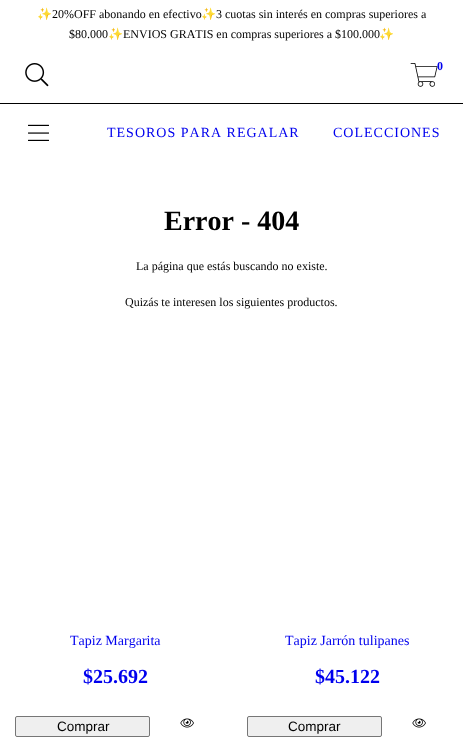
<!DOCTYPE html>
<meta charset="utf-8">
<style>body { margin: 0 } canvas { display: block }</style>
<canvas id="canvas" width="463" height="742"></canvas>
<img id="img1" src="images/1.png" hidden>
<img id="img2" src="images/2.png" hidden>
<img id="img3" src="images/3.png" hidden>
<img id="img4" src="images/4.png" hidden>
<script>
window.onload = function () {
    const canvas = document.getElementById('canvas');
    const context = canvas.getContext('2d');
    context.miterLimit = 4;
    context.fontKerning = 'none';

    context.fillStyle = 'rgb(255, 255, 255)';
    context.fillRect(0, 0, 463, 742);
    context.drawImage(document.getElementById('img1'), 25, 63, 24, 24);
    context.drawImage(document.getElementById('img2'), 410, 63, 28, 24);
    context.fillStyle = 'rgb(0, 0, 0)';
    context.fillRect(0, 103, 463, 1);
    context.drawImage(document.getElementById('img3'), 28, 124, 21, 17);
    context.fillStyle = 'rgb(239, 239, 239)';
    context.beginPath();
    context.roundRect(15.5, 716.5, 134, 20, 1.5);
    context.fill();
    context.strokeStyle = 'rgb(118, 118, 118)';
    context.stroke();
    context.drawImage(document.getElementById('img4'), 180, 718, 14, 10);
    context.beginPath();
    context.roundRect(247.5, 716.5, 134, 20, 1.5);
    context.fill();
    context.stroke();
    context.drawImage(document.getElementById('img4'), 412, 718, 14, 10);
    context.font = '12px Noto Color Emoji';
    context.fillStyle = 'rgb(0, 0, 0)';
    context.fillText('✨', 37, 18);
    context.font = '12px Liberation Serif';
    context.fillText('20%OFF abonando en efectivo', 52, 18);
    context.font = '12px Noto Color Emoji';
    context.fillText('✨', 201, 18);
    context.font = '12px Liberation Serif';
    context.fillText('3 cuotas sin interés en compras superiores a', 216, 18);
    context.fillText('$80.000', 69, 38);
    context.font = '12px Noto Color Emoji';
    context.fillText('✨', 108, 38);
    context.font = '12px Liberation Serif';
    context.fillText('ENVIOS GRATIS en compras superiores a $100.000', 123, 38);
    context.font = '12px Noto Color Emoji';
    context.fillText('✨', 379, 38);
    context.font = 'bold 12px Liberation Serif';
    context.fillStyle = 'rgb(0, 0, 238)';
    context.fillText('0', 437, 70);
    context.letterSpacing = '1px';
    context.font = '14px Liberation Serif';
    context.fillText('TESOROS PARA REGALAR', 107, 137);
    context.fillText('COLECCIONES', 333, 137);
    context.letterSpacing = '0px';
    context.font = 'bold 28px Liberation Serif';
    context.fillStyle = 'rgb(0, 0, 0)';
    context.fillText('Error - 404', 164, 230);
    context.font = '12px Liberation Serif';
    context.fillText('La página que estás buscando no existe.', 136, 270);
    context.fillText('Quizás te interesen los siguientes productos.', 125, 306);
    context.font = '14px Liberation Serif';
    context.fillStyle = 'rgb(0, 0, 238)';
    context.fillText('Tapiz Margarita', 70, 645);
    context.font = 'bold 20px Liberation Serif';
    context.fillText('$25.692', 83, 683);
    context.font = '13.5px Liberation Sans';
    context.fillStyle = 'rgb(0, 0, 0)';
    context.fillText('Comprar', 57, 731);
    context.font = '14px Liberation Serif';
    context.fillStyle = 'rgb(0, 0, 238)';
    context.fillText('Tapiz Jarrón tulipanes', 285, 645);
    context.font = 'bold 20px Liberation Serif';
    context.fillText('$45.122', 315, 683);
    context.font = '13.5px Liberation Sans';
    context.fillStyle = 'rgb(0, 0, 0)';
    context.fillText('Comprar', 288, 731);
};
</script>
